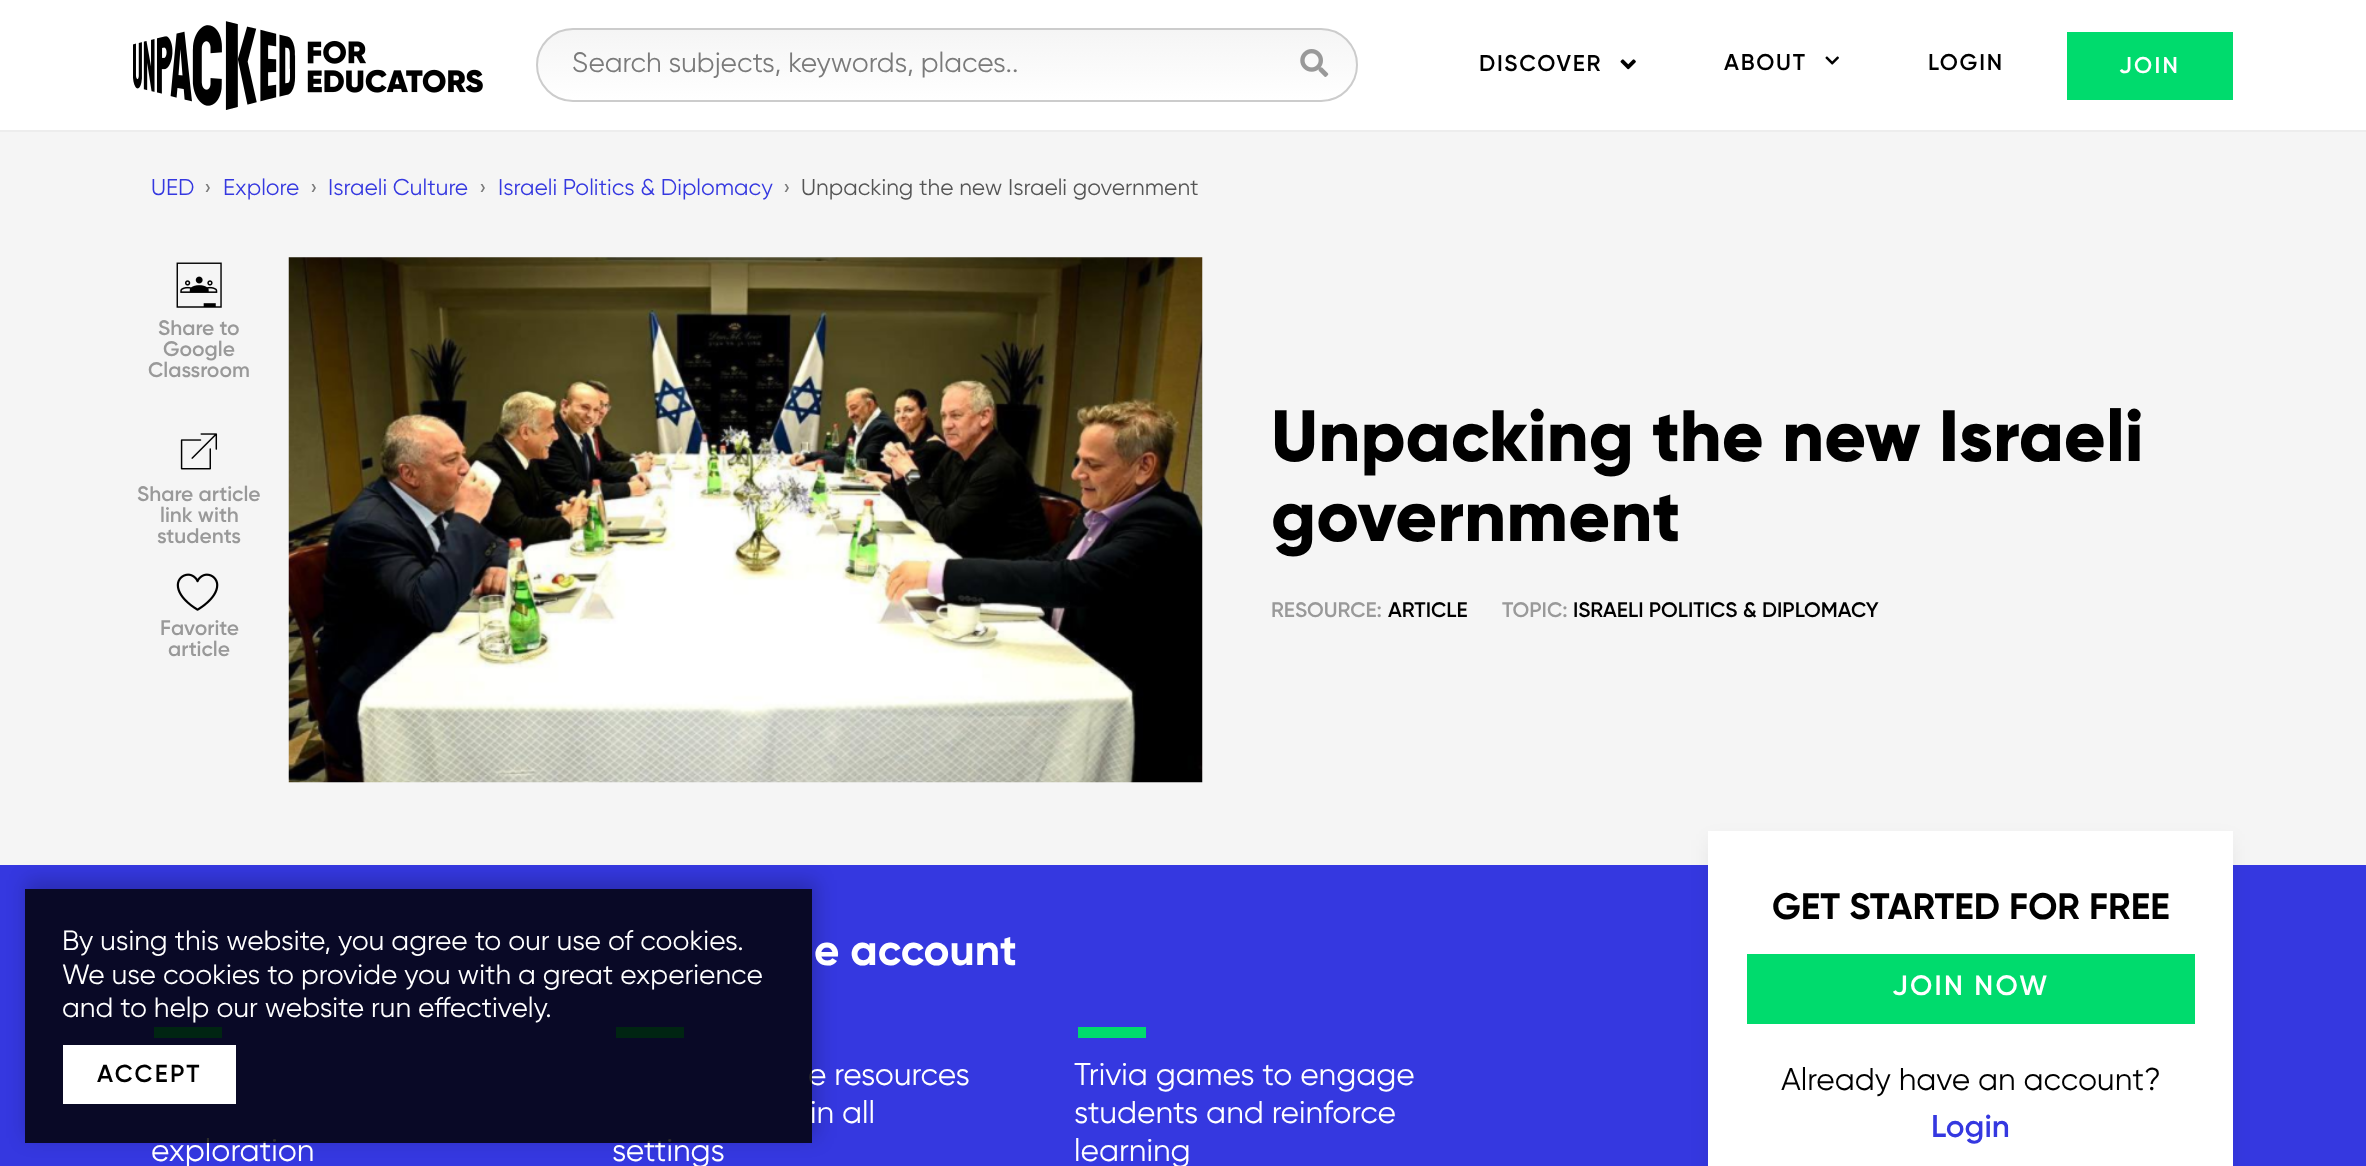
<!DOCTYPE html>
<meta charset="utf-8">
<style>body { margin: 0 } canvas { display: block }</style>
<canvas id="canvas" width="2366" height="1166"></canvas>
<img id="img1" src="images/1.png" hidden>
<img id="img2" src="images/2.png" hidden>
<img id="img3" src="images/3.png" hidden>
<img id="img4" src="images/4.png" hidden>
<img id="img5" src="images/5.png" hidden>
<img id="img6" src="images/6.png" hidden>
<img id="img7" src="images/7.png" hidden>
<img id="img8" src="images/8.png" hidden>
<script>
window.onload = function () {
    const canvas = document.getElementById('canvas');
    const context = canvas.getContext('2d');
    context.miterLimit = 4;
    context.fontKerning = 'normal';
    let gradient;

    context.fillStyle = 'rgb(255, 255, 255)';
    context.fillRect(0, 0, 2366, 1166);
    context.fillStyle = 'rgb(237, 237, 237)';
    context.fillRect(0, 130, 2366, 2);
    context.drawImage(document.getElementById('img1'), 133, 21, 350, 89);
    context.save();
    context.beginPath();
    context.roundRect(536, 28, 822, 74, 37);
    context.clip();
    gradient = context.createLinearGradient(947, 30, 947, 100);
    gradient.addColorStop(0, 'rgb(245, 245, 245)');
    gradient.addColorStop(1, 'rgb(255, 255, 255)');
    context.fillStyle = gradient;
    context.fillRect(536, 30, 822, 70);
    context.restore();
    context.beginPath();
    context.roundRect(537, 29, 820, 72, 36);
    context.strokeStyle = 'rgb(204, 204, 204)';
    context.lineWidth = 2;
    context.stroke();
    context.drawImage(document.getElementById('img2'), 1300, 49, 29, 28);
    context.drawImage(document.getElementById('img3'), 1620, 59, 16, 11);
    context.drawImage(document.getElementById('img4'), 1825, 56, 14, 9);
    context.fillStyle = 'rgb(0, 219, 109)';
    context.fillRect(2067, 32, 166, 68);
    context.fillStyle = 'rgb(245, 245, 245)';
    context.fillRect(0, 132, 2366, 733);
    context.drawImage(document.getElementById('img5'), 176, 262, 46, 46);
    context.drawImage(document.getElementById('img6'), 180, 433, 38, 37);
    context.drawImage(document.getElementById('img7'), 176, 573, 43, 38);
    context.drawImage(document.getElementById('img8'), 288, 257, 915, 526);
    context.fillStyle = 'rgb(53, 56, 224)';
    context.fillRect(0, 865, 2366, 301);
    context.fillStyle = 'rgb(0, 219, 109)';
    context.fillRect(154, 1027, 68, 11);
    context.fillRect(616, 1027, 68, 11);
    context.fillRect(1078, 1027, 68, 11);
    context.fillStyle = 'rgba(0, 0, 0, 0.06)';
    context.filter = 'blur(9.5px)';
    context.beginPath();
    context.rect(1708, 840, 525, 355);
    context.fill();
    context.filter = 'none';
    context.fillStyle = 'rgb(255, 255, 255)';
    context.fillRect(1708, 831, 525, 335);
    context.fillStyle = 'rgb(0, 219, 109)';
    context.fillRect(1747, 954, 448, 70);
    context.save();
    context.beginPath();
    context.moveTo(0, 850);
    context.lineTo(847, 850);
    context.lineTo(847, 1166);
    context.lineTo(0, 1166);
    context.closePath();
    context.moveTo(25, 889);
    context.lineTo(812, 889);
    context.lineTo(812, 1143);
    context.lineTo(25, 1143);
    context.closePath();
    context.clip('evenodd');
    context.fillStyle = 'rgba(0, 0, 0, 0.2)';
    context.filter = 'blur(9.5px)';
    context.beginPath();
    context.rect(26, 880, 791, 258);
    context.fill();
    context.filter = 'none';
    context.restore();
    context.font = '28px Gilroy';
    context.fillStyle = 'rgb(122, 122, 122)';
    context.fillText('Search subjects, keywords, places..', 572, 72);
    context.letterSpacing = '1.75px';
    context.font = '22.75px "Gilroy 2"';
    context.fillStyle = 'rgb(0, 0, 0)';
    context.fillText('DISCOVER', 1479, 71);
    context.fillText('ABOUT', 1724, 70);
    context.fillText('LOGIN', 1928, 70);
    context.letterSpacing = '2.25px';
    context.fillStyle = 'rgb(255, 255, 255)';
    context.fillText('JOIN', 2119, 73);
    context.letterSpacing = '0px';
    context.font = '22.75px Gilroy';
    context.fillStyle = 'rgb(53, 56, 224)';
    context.fillText('UED', 151, 195);
    context.fillStyle = 'rgb(122, 122, 122)';
    context.fillText('›', 204, 195);
    context.fillStyle = 'rgb(53, 56, 224)';
    context.fillText('Explore', 223, 195);
    context.fillStyle = 'rgb(122, 122, 122)';
    context.fillText('›', 310, 195);
    context.fillStyle = 'rgb(53, 56, 224)';
    context.fillText('Israeli Culture', 328, 195);
    context.fillStyle = 'rgb(122, 122, 122)';
    context.fillText('›', 479, 195);
    context.fillStyle = 'rgb(53, 56, 224)';
    context.fillText('Israeli Politics & Diplomacy', 498, 195);
    context.fillStyle = 'rgb(122, 122, 122)';
    context.fillText('›', 783, 195);
    context.fillStyle = 'rgb(85, 85, 85)';
    context.fillText('Unpacking the new Israeli government', 801, 195);
    context.font = '21px "Gilroy 2"';
    context.fillStyle = 'rgb(153, 153, 153)';
    context.fillText('Share to', 158, 335);
    context.fillText('Google', 163, 356);
    context.fillText('Classroom', 148, 377);
    context.fillText('Share article', 137, 501);
    context.fillText('link with', 160, 522);
    context.fillText('students', 157, 543);
    context.fillText('Favorite', 160, 635);
    context.fillText('article', 168, 656);
    context.font = '72.5px "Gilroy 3"';
    context.fillStyle = 'rgb(0, 0, 0)';
    context.fillText('Unpacking the new Israeli', 1271, 461);
    context.fillText('government', 1271, 541);
    context.font = '21px "Gilroy 2"';
    context.fillStyle = 'rgb(153, 153, 153)';
    context.fillText('RESOURCE:', 1271, 617);
    context.fillStyle = 'rgb(0, 0, 0)';
    context.fillText('ARTICLE', 1388, 617);
    context.fillStyle = 'rgb(153, 153, 153)';
    context.fillText('TOPIC:', 1502, 617);
    context.fillStyle = 'rgb(0, 0, 0)';
    context.fillText('ISRAELI POLITICS & DIPLOMACY', 1573, 617);
    context.font = '43.75px "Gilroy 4"';
    context.fillStyle = 'rgb(255, 255, 255)';
    context.fillText('e account', 814, 965);
    context.font = '31.5px Gilroy';
    context.fillText('exploration', 151, 1161);
    context.fillText('e resources', 808, 1085);
    context.fillText('in all', 810, 1123);
    context.fillText('settings', 612, 1161);
    context.fillText('Trivia games to engage', 1074, 1085);
    context.fillText('students and reinforce', 1074, 1123);
    context.fillText('learning', 1074, 1161);
    context.font = '36.75px "Gilroy 4"';
    context.fillStyle = 'rgb(0, 0, 0)';
    context.fillText('GET STARTED FOR FREE', 1772, 919);
    context.letterSpacing = '2.25px';
    context.font = '28px "Gilroy 2"';
    context.fillStyle = 'rgb(255, 255, 255)';
    context.fillText('JOIN NOW', 1892, 995);
    context.letterSpacing = '0px';
    context.font = '31.5px Gilroy';
    context.fillStyle = 'rgb(0, 0, 0)';
    context.fillText('Already have an account?', 1781, 1090);
    context.font = '31.5px "Gilroy 2"';
    context.fillStyle = 'rgb(53, 56, 224)';
    context.fillText('Login', 1931, 1137);
    context.fillStyle = 'rgba(0, 0, 0, 0.83)';
    context.fillRect(25, 889, 787, 254);
    context.font = '28px Gilroy';
    context.fillStyle = 'rgb(255, 255, 255)';
    context.fillText('By using this website, you agree to our use of cookies.', 62, 950);
    context.fillText('We use cookies to provide you with a great experience', 62, 984);
    context.fillText('and to help our website run effectively.', 62, 1017);
    context.fillRect(63, 1045, 173, 59);
    context.letterSpacing = '2.25px';
    context.font = '24.5px "Gilroy 2"';
    context.fillStyle = 'rgb(0, 0, 0)';
    context.fillText('ACCEPT', 97, 1082);
};
</script>
